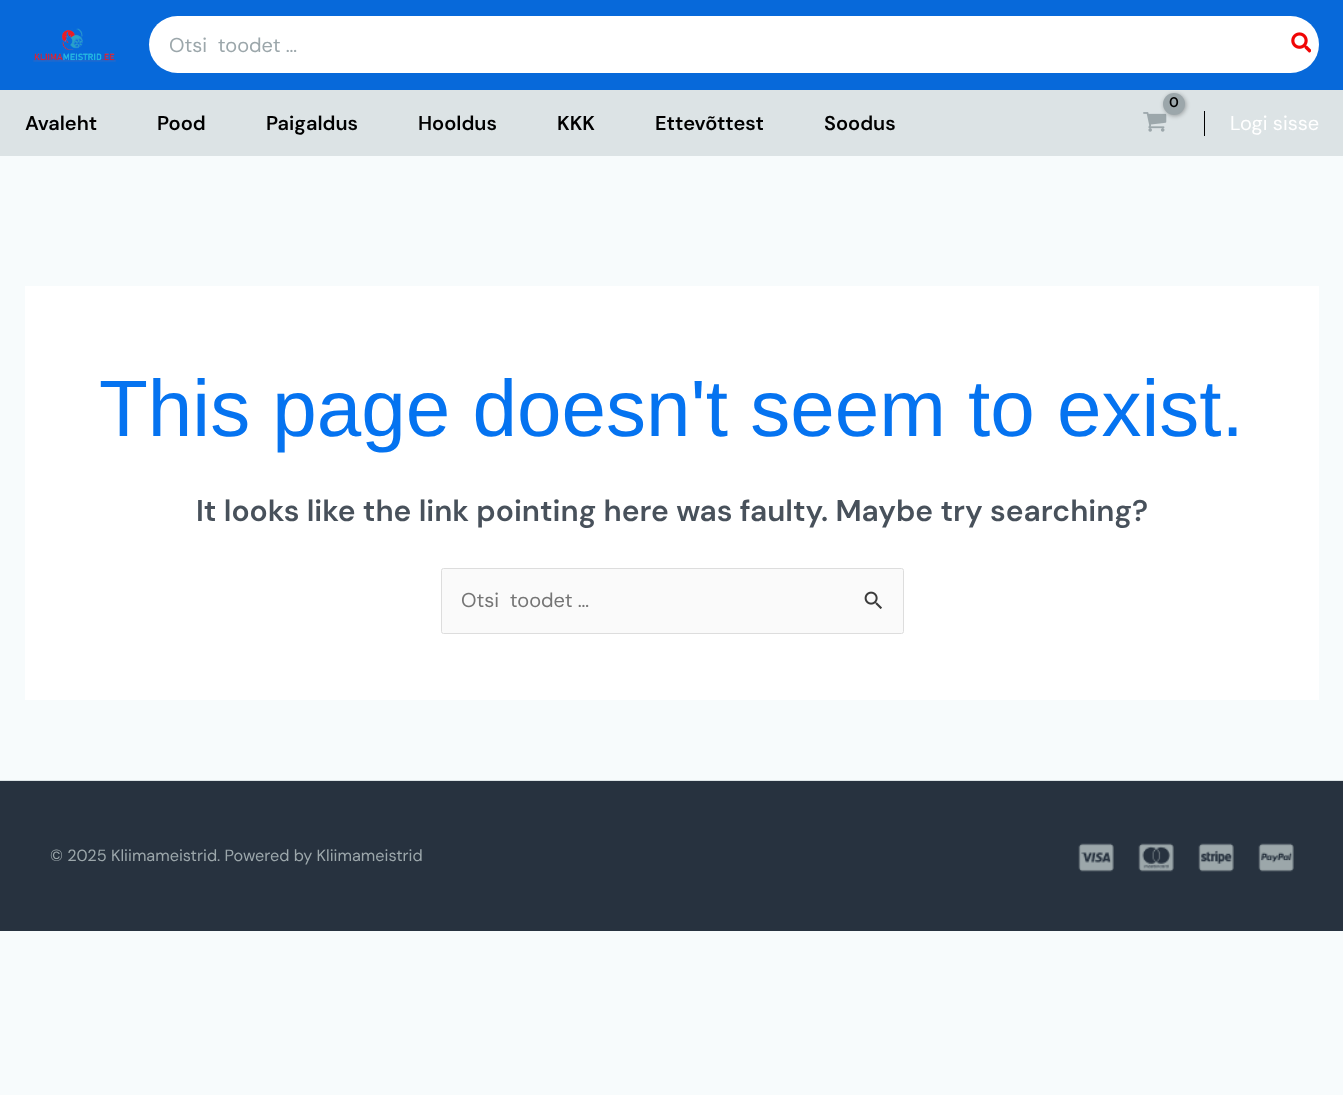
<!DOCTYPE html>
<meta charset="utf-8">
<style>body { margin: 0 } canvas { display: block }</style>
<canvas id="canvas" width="1343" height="1095"></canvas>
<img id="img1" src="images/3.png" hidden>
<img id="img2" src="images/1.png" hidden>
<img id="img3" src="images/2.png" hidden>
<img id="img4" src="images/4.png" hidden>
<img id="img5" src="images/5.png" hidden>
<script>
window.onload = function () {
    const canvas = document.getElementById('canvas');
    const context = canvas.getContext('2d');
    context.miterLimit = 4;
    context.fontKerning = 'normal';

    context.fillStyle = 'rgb(247, 251, 252)';
    context.fillRect(0, 0, 1343, 1095);
    context.fillStyle = 'rgb(220, 227, 229)';
    context.fillRect(0, 91, 1343, 65);
    context.drawImage(document.getElementById('img1'), 1143, 112, 24, 20);
    context.fillStyle = 'rgba(0, 0, 0, 0.3)';
    context.filter = 'blur(2px)';
    context.beginPath();
    context.roundRect(1164, 94, 22, 22, 11);
    context.fill();
    context.filter = 'none';
    context.fillStyle = 'rgb(7, 105, 218)';
    context.fillRect(0, 0, 1343, 90);
    context.fillStyle = 'rgb(220, 227, 229)';
    context.fillRect(0, 90, 1343, 1);
    context.drawImage(document.getElementById('img2'), 33, 28, 83, 34);
    context.fillStyle = 'rgb(255, 255, 255)';
    context.beginPath();
    context.roundRect(149, 16, 1170, 57, 28.5);
    context.fill();
    context.drawImage(document.getElementById('img3'), 1291, 32, 20, 21);
    context.fillStyle = 'rgb(156, 167, 171)';
    context.beginPath();
    context.arc(1174, 104, 11, 0, 2 * Math.PI);
    context.fill();
    context.fillStyle = 'rgb(0, 0, 0)';
    context.fillRect(1204, 111, 1, 25);
    context.fillStyle = 'rgb(255, 255, 255)';
    context.fillRect(25, 286, 1294, 414);
    context.fillStyle = 'rgb(250, 250, 250)';
    context.beginPath();
    context.roundRect(441.5, 568.5, 462, 65, 2);
    context.fill();
    context.strokeStyle = 'rgb(221, 221, 221)';
    context.stroke();
    context.drawImage(document.getElementById('img4'), 864, 591, 18, 18);
    context.fillStyle = 'rgb(39, 50, 63)';
    context.fillRect(0, 781, 1343, 150);
    context.fillStyle = 'rgb(220, 227, 229)';
    context.fillRect(0, 780, 1343, 1);
    context.drawImage(document.getElementById('img5'), 1078, 843, 216, 29);
    context.font = '20px DM Sans';
    context.fillStyle = 'rgb(156, 167, 171)';
    context.fillText('Otsi  toodet …', 169, 52);
    context.font = '600 20px DM Sans';
    context.fillStyle = 'rgb(0, 0, 0)';
    context.fillText('Avaleht', 25, 130);
    context.fillText('Pood', 157, 130);
    context.fillText('Paigaldus', 266, 130);
    context.fillText('Hooldus', 418, 130);
    context.fillText('KKK', 557, 130);
    context.fillText('Ettevõttest', 655, 130);
    context.fillText('Soodus', 824, 130);
    context.letterSpacing = '-1px';
    context.font = '600 14px DM Sans';
    context.fillText('0', 1169, 107);
    context.letterSpacing = '0px';
    context.font = '20px DM Sans';
    context.fillStyle = 'rgb(255, 255, 255)';
    context.fillText('Logi sisse', 1230, 130);
    context.font = '80px Liberation Sans';
    context.fillStyle = 'rgb(5, 115, 240)';
    context.fillText('This page doesn\'t seem to exist.', 99, 436);
    context.font = '600 30px DM Sans';
    context.fillStyle = 'rgb(72, 81, 91)';
    context.fillText('It looks like the link pointing here was faulty. Maybe try searching?', 196, 521);
    context.font = '20px DM Sans';
    context.fillStyle = 'rgb(117, 117, 117)';
    context.fillText('Otsi  toodet …', 461, 607);
    context.font = '16.25px DM Sans';
    context.fillStyle = 'rgb(156, 167, 171)';
    context.fillText('© 2025 Kliimameistrid. Powered by Kliimameistrid', 50, 861);
};
</script>
